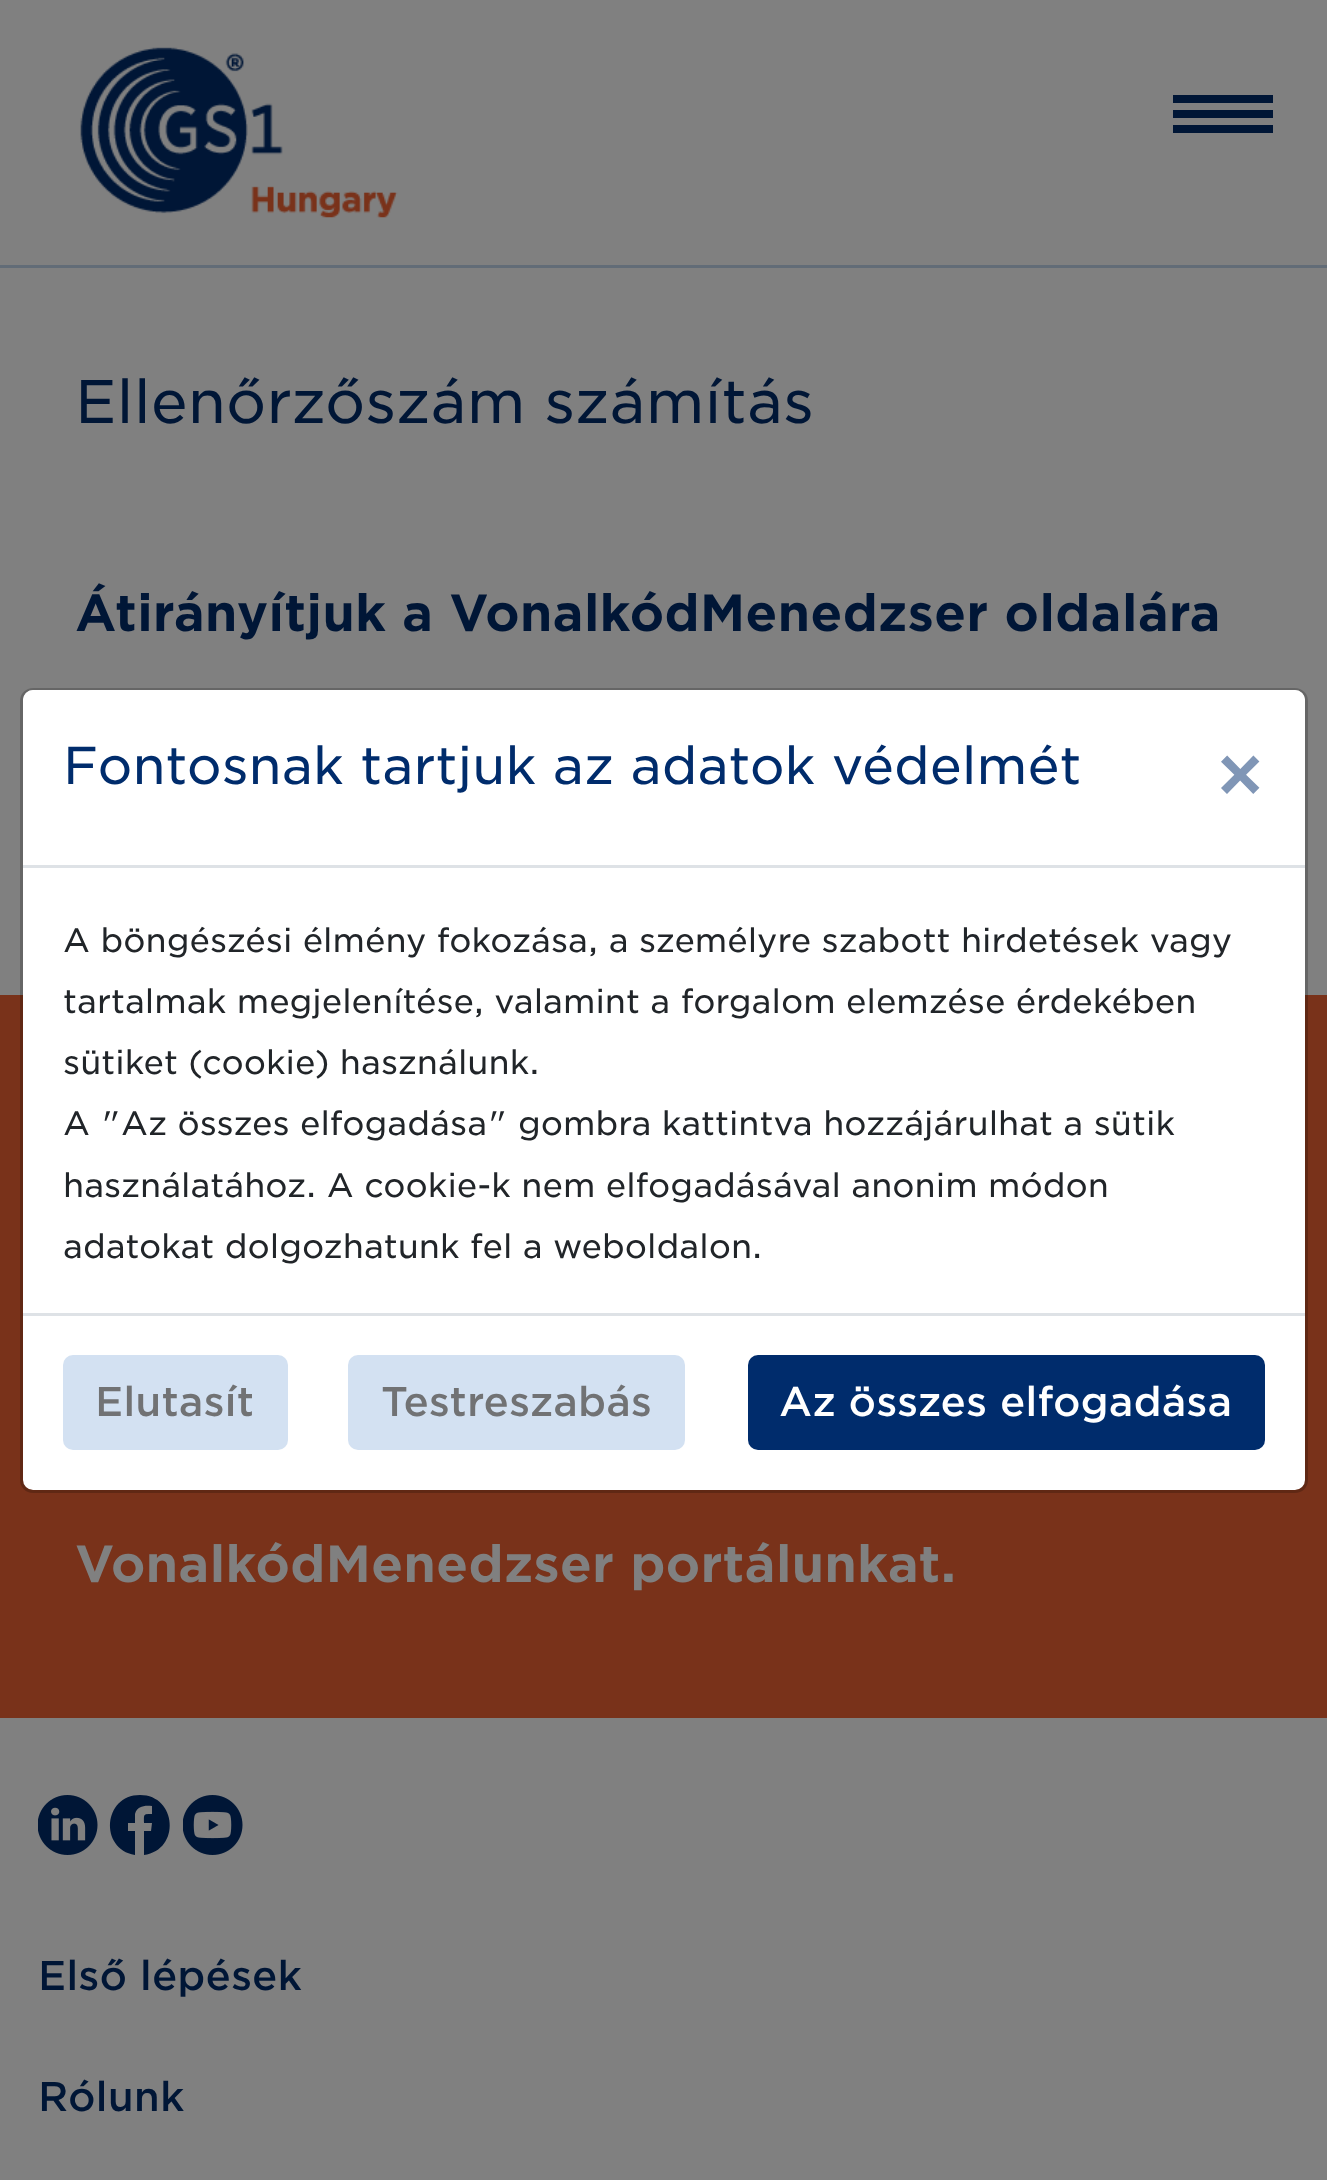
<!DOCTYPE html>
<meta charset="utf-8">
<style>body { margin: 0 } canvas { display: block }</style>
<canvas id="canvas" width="1327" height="2180"></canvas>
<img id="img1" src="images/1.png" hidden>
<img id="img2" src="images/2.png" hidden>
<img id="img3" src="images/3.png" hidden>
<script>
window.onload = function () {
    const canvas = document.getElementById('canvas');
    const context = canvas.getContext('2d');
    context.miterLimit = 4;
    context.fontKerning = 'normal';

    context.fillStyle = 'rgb(128, 128, 128)';
    context.fillRect(0, 0, 1327, 2180);
    context.fillStyle = 'rgb(98, 108, 119)';
    context.fillRect(0, 265, 1327, 3);
    context.drawImage(document.getElementById('img1'), 80, 47, 318, 171);
    context.fillStyle = 'rgb(0, 22, 54)';
    context.fillRect(1173, 95, 100, 8);
    context.fillRect(1173, 110, 100, 8);
    context.fillRect(1173, 125, 100, 8);
    context.fillStyle = 'rgb(121, 50, 26)';
    context.fillRect(0, 995, 1327, 723);
    context.drawImage(document.getElementById('img2'), 38, 1795, 60, 60);
    context.fillStyle = 'rgb(0, 22, 54)';
    context.beginPath();
    context.moveTo(140, 1795);
    context.bezierCurveTo(103, 1795, 99, 1849, 135, 1855);
    context.lineTo(135, 1831);
    context.lineTo(128, 1831);
    context.lineTo(128, 1823);
    context.lineTo(135, 1823);
    context.lineTo(135, 1814);
    context.bezierCurveTo(137, 1806, 145, 1805, 152, 1806);
    context.lineTo(152, 1814);
    context.bezierCurveTo(143, 1814, 144, 1814, 144, 1823);
    context.lineTo(152, 1823);
    context.lineTo(151, 1831);
    context.lineTo(144, 1831);
    context.lineTo(144, 1855);
    context.bezierCurveTo(181, 1850, 177, 1795, 140, 1795);
    context.closePath();
    context.fill();
    context.drawImage(document.getElementById('img3'), 183, 1795, 60, 60);
    context.fillStyle = 'rgb(255, 255, 255)';
    context.beginPath();
    context.roundRect(23, 690, 1282, 800, 10);
    context.fill();
    context.beginPath();
    context.roundRect(21.5, 689.5, 1285, 802, 11.5);
    context.strokeStyle = 'rgba(0, 0, 0, 0.2)';
    context.lineWidth = 3;
    context.stroke();
    context.beginPath();
    context.roundRect(23, 690, 1282, 178, [10, 10, 0, 0]);
    context.fill();
    context.fillStyle = 'rgb(222, 226, 230)';
    context.fillRect(23, 865, 1282, 3);
    context.fillRect(23, 1313, 1282, 3);
    context.fillStyle = 'rgb(211, 225, 242)';
    context.beginPath();
    context.roundRect(63, 1355, 225, 95, 10);
    context.fill();
    context.beginPath();
    context.roundRect(348, 1355, 337, 95, 10);
    context.fill();
    context.fillStyle = 'rgb(0, 44, 108)';
    context.beginPath();
    context.roundRect(748, 1355, 517, 95, 10);
    context.fill();
    context.font = '300 59px "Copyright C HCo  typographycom"';
    context.fillStyle = 'rgb(0, 22, 54)';
    context.fillText('Ellenőrzőszám számítás', 75, 423);
    context.font = '50px "Copyright C HCo  typographycom"';
    context.fillText('Átirányítjuk a VonalkódMenedzser oldalára', 75, 631);
    context.fillStyle = 'rgb(128, 128, 128)';
    context.fillText('VonalkódMenedzser portálunkat.', 75, 1582);
    context.font = '300 40px "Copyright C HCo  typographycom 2"';
    context.fillStyle = 'rgb(0, 22, 54)';
    context.fillText('Első lépések', 38, 1990);
    context.fillText('Rólunk', 38, 2111);
    context.font = '300 51.1px "Copyright C HCo  typographycom"';
    context.fillStyle = 'rgb(0, 44, 108)';
    context.fillText('Fontosnak tartjuk az adatok védelmét', 63, 784);
    context.font = '300 80px "Copyright C HCo  typographycom 2"';
    context.fillStyle = 'rgb(128, 150, 182)';
    context.fillText('×', 1215, 804);
    context.font = '300 32.55px "Copyright C HCo  typographycom"';
    context.fillStyle = 'rgb(33, 37, 41)';
    context.fillText('A böngészési élmény fokozása, a személyre szabott hirdetések vagy', 63, 952);
    context.fillText('tartalmak megjelenítése, valamint a forgalom elemzése érdekében', 63, 1013);
    context.fillText('sütiket (cookie) használunk.', 63, 1074);
    context.fillText('A "Az összes elfogadása" gombra kattintva hozzájárulhat a sütik', 63, 1135);
    context.fillText('használatához. A cookie-k nem elfogadásával anonim módon', 63, 1197);
    context.fillText('adatokat dolgozhatunk fel a weboldalon.', 63, 1258);
    context.font = '300 40px "Copyright C HCo  typographycom 2"';
    context.fillStyle = 'rgb(113, 114, 116)';
    context.fillText('Elutasít', 95, 1416);
    context.fillText('Testreszabás', 381, 1416);
    context.fillStyle = 'rgb(255, 255, 255)';
    context.fillText('Az összes elfogadása', 779, 1416);
};
</script>
